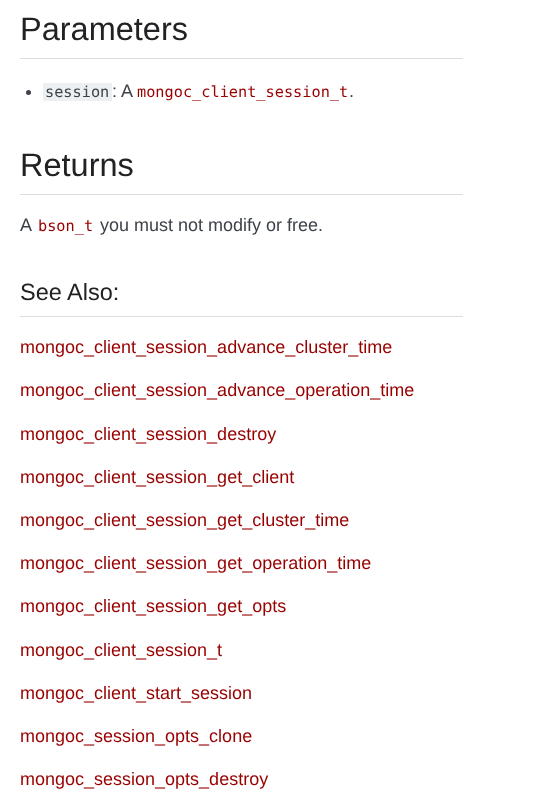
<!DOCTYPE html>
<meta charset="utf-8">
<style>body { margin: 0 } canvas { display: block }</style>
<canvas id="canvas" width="537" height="798"></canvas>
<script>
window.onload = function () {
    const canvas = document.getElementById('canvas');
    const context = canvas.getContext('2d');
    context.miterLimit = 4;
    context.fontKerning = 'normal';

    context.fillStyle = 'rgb(255, 255, 255)';
    context.fillRect(0, 0, 537, 798);
    context.fillStyle = 'rgb(221, 221, 221)';
    context.fillRect(20, 58, 443, 1);
    context.fillStyle = 'rgb(62, 67, 73)';
    context.beginPath();
    context.arc(28.5, 92.5, 2.5, 0, 2 * Math.PI);
    context.fill();
    context.fillStyle = 'rgb(236, 240, 243)';
    context.fillRect(43, 83, 69, 18);
    context.fillStyle = 'rgb(221, 221, 221)';
    context.fillRect(20, 194, 443, 1);
    context.fillRect(20, 316, 443, 1);
    context.font = '32.5px Liberation Sans';
    context.fillStyle = 'rgb(33, 34, 36)';
    context.fillText('Parameters', 20, 40);
    context.font = '15.25px DejaVu Sans Mono';
    context.fillStyle = 'rgb(62, 67, 73)';
    context.fillText('session', 45, 97);
    context.font = '18px Liberation Sans';
    context.fillText(': A', 112, 97);
    context.font = '15.25px DejaVu Sans Mono';
    context.fillStyle = 'rgb(153, 0, 0)';
    context.fillText('mongoc_client_session_t', 137, 97);
    context.font = '18px Liberation Sans';
    context.fillStyle = 'rgb(62, 67, 73)';
    context.fillText('.', 349, 97);
    context.font = '32.5px Liberation Sans';
    context.fillStyle = 'rgb(33, 34, 36)';
    context.fillText('Returns', 20, 176);
    context.font = '18px Liberation Sans';
    context.fillStyle = 'rgb(62, 67, 73)';
    context.fillText('A', 20, 231);
    context.font = '15.25px DejaVu Sans Mono';
    context.fillStyle = 'rgb(153, 0, 0)';
    context.fillText('bson_t', 38, 231);
    context.font = '18px Liberation Sans';
    context.fillStyle = 'rgb(62, 67, 73)';
    context.fillText('you must not modify or free.', 100, 231);
    context.font = '23.5px Liberation Sans';
    context.fillStyle = 'rgb(33, 34, 36)';
    context.fillText('See Also:', 20, 300);
    context.font = '18px Liberation Sans';
    context.fillStyle = 'rgb(153, 0, 0)';
    context.fillText('mongoc_client_session_advance_cluster_time', 20, 353);
    context.fillText('mongoc_client_session_advance_operation_time', 20, 396);
    context.fillText('mongoc_client_session_destroy', 20, 440);
    context.fillText('mongoc_client_session_get_client', 20, 483);
    context.fillText('mongoc_client_session_get_cluster_time', 20, 526);
    context.fillText('mongoc_client_session_get_operation_time', 20, 569);
    context.fillText('mongoc_client_session_get_opts', 20, 612);
    context.fillText('mongoc_client_session_t', 20, 656);
    context.fillText('mongoc_client_start_session', 20, 699);
    context.fillText('mongoc_session_opts_clone', 20, 742);
    context.fillText('mongoc_session_opts_destroy', 20, 785);
};
</script>
